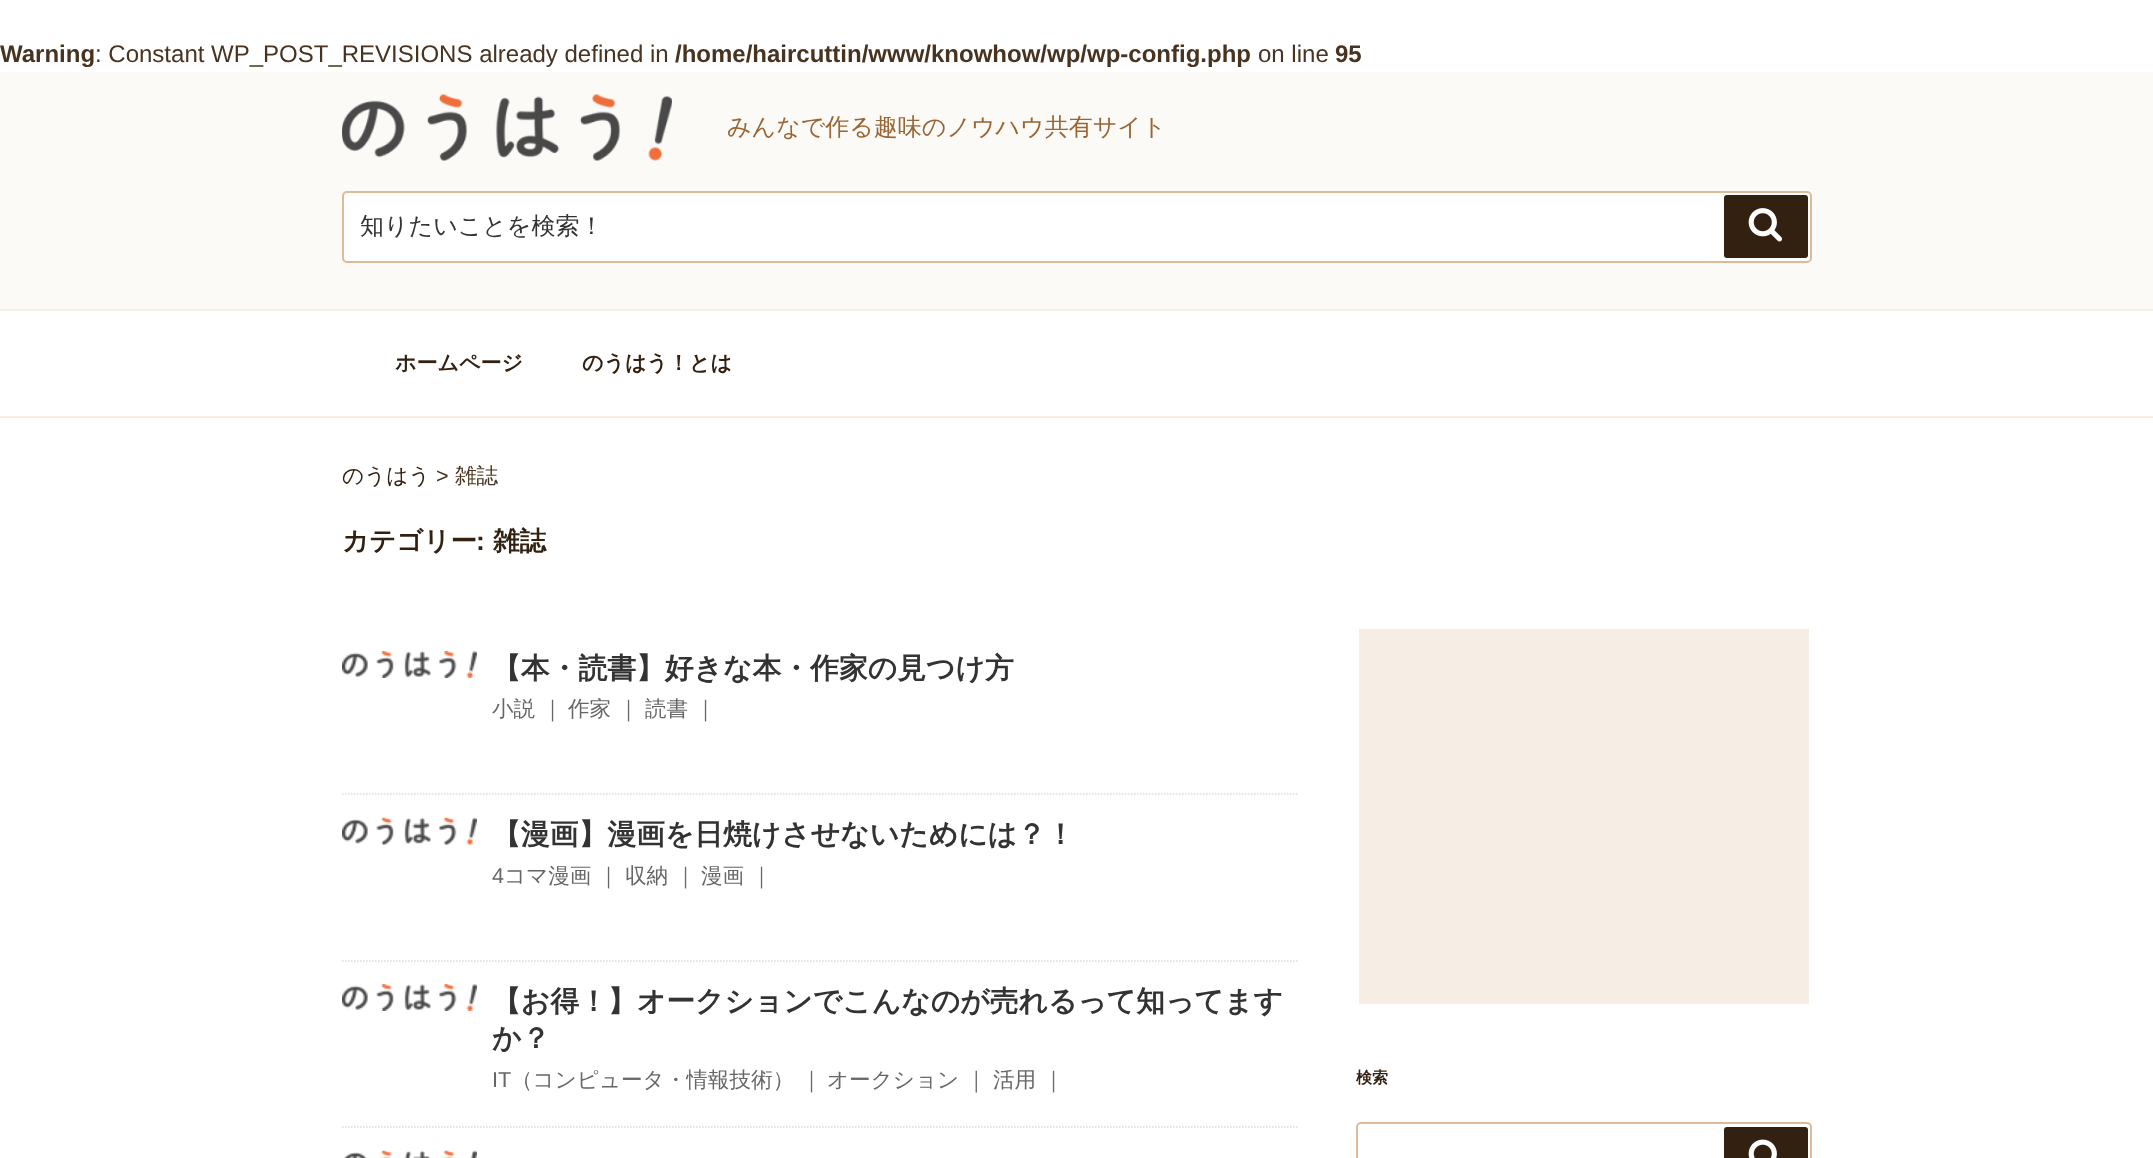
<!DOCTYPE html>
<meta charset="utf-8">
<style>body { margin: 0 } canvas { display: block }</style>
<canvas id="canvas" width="2153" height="1158"></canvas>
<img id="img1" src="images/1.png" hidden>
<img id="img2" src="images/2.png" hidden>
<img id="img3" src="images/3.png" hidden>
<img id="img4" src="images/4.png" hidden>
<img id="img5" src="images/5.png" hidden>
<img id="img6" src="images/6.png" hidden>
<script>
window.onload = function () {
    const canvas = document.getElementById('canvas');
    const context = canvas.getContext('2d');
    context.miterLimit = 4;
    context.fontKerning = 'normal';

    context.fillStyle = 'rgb(255, 255, 255)';
    context.fillRect(0, 0, 2153, 1158);
    context.fillStyle = 'rgb(252, 250, 247)';
    context.fillRect(0, 72, 2153, 237);
    context.drawImage(document.getElementById('img1'), 342, 94, 330, 67);
    context.fillStyle = 'rgb(255, 255, 255)';
    context.beginPath();
    context.roundRect(343, 192, 1468, 70, 4);
    context.fill();
    context.strokeStyle = 'rgb(221, 186, 152)';
    context.lineWidth = 2;
    context.stroke();
    context.fillStyle = 'rgb(50, 33, 17)';
    context.beginPath();
    context.roundRect(1724, 195, 84, 63, 3);
    context.fill();
    context.drawImage(document.getElementById('img2'), 1748, 208, 34, 34);
    context.fillStyle = 'rgb(246, 237, 228)';
    context.fillRect(0, 309, 2153, 2);
    context.fillRect(0, 416, 2153, 2);
    context.beginPath();
    context.moveTo(342, 794);
    context.lineTo(1297.5, 794);
    context.strokeStyle = 'rgb(219, 219, 219)';
    context.lineWidth = 1.5;
    context.setLineDash([1.5, 1.5]);
    context.stroke();
    context.drawImage(document.getElementById('img3'), 342, 651, 135, 27);
    context.beginPath();
    context.moveTo(342, 961);
    context.lineTo(1297.5, 961);
    context.stroke();
    context.drawImage(document.getElementById('img4'), 342, 817, 135, 28);
    context.beginPath();
    context.moveTo(342, 1127);
    context.lineTo(1297.5, 1127);
    context.stroke();
    context.drawImage(document.getElementById('img3'), 342, 984, 135, 27);
    context.drawImage(document.getElementById('img5'), 344, 1150, 133, 8);
    context.fillRect(1359, 629, 450, 375);
    context.beginPath();
    context.roundRect(1357, 1123, 454, 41, 4);
    context.strokeStyle = 'rgb(221, 186, 152)';
    context.lineWidth = 2;
    context.setLineDash([]);
    context.stroke();
    context.fillStyle = 'rgb(50, 33, 17)';
    context.beginPath();
    context.roundRect(1724, 1127, 84, 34, 3);
    context.fill();
    context.drawImage(document.getElementById('img6'), 1748, 1139, 29, 19);
    context.font = 'bold 24px Liberation Sans';
    context.fillStyle = 'rgb(71, 51, 31)';
    context.fillText('Warning', 0, 62);
    context.font = '24px Liberation Sans';
    context.fillText(': Constant WP_POST_REVISIONS already defined in', 95, 62);
    context.font = 'bold 24px Liberation Sans';
    context.fillText('/home/haircuttin/www/knowhow/wp/wp-config.php', 675, 62);
    context.font = '24px Liberation Sans';
    context.fillText('on line', 1258, 62);
    context.font = 'bold 24px Liberation Sans';
    context.fillText('95', 1335, 62);
    context.font = '500 24px WenQuanYi Zen Hei';
    context.fillStyle = 'rgb(153, 102, 51)';
    context.fillText('みんなで作る趣味のノウハウ共有サイト', 727, 135);
    context.fillStyle = 'rgb(51, 51, 51)';
    context.fillText('知りたいことを検索！', 360, 234);
    context.font = 'bold 21px WenQuanYi Zen Hei';
    context.fillStyle = 'rgb(50, 33, 17)';
    context.fillText('ホームページ', 395, 370);
    context.fillText('のうはう！とは', 582, 370);
    context.font = '500 21.6px WenQuanYi Zen Hei';
    context.fillText('のうはう', 342, 483);
    context.font = '21.6px Liberation Sans';
    context.fillStyle = 'rgb(71, 51, 31)';
    context.fillText('>', 436, 483);
    context.font = '500 21.6px WenQuanYi Zen Hei';
    context.fillText('雑誌', 455, 483);
    context.font = 'bold 26.5px WenQuanYi Zen Hei';
    context.fillStyle = 'rgb(50, 33, 17)';
    context.fillText('カテゴリー', 342, 550);
    context.font = 'bold 26.5px Liberation Sans';
    context.fillText(':', 476, 550);
    context.font = 'bold 26.5px WenQuanYi Zen Hei';
    context.fillText('雑誌', 493, 550);
    context.font = 'bold 28.8px WenQuanYi Zen Hei';
    context.fillStyle = 'rgb(51, 51, 51)';
    context.fillText('【本・読書】好きな本・作家の見つけ方', 492, 678);
    context.font = '500 21.6px WenQuanYi Zen Hei';
    context.fillStyle = 'rgb(102, 102, 102)';
    context.fillText('小説 ｜', 492, 716);
    context.fillText('作家 ｜', 568, 716);
    context.fillText('読書 ｜', 645, 716);
    context.font = 'bold 28.8px WenQuanYi Zen Hei';
    context.fillStyle = 'rgb(51, 51, 51)';
    context.fillText('【漫画】漫画を日焼けさせないためには？！', 492, 844);
    context.font = '21.6px Liberation Sans';
    context.fillStyle = 'rgb(102, 102, 102)';
    context.fillText('4', 492, 883);
    context.font = '500 21.6px WenQuanYi Zen Hei';
    context.fillText('コマ漫画 ｜', 504, 883);
    context.fillText('収納 ｜', 625, 883);
    context.fillText('漫画 ｜', 701, 883);
    context.font = 'bold 28.8px WenQuanYi Zen Hei';
    context.fillStyle = 'rgb(51, 51, 51)';
    context.fillText('【お得！】オークションでこんなのが売れるって知ってます', 492, 1011);
    context.fillText('か？', 492, 1048);
    context.font = '21.6px Liberation Sans';
    context.fillStyle = 'rgb(102, 102, 102)';
    context.fillText('IT', 492, 1087);
    context.font = '500 21.6px WenQuanYi Zen Hei';
    context.fillText('（コンピュータ・情報技術） ｜', 511, 1087);
    context.fillText('オークション ｜', 827, 1087);
    context.fillText('活用 ｜', 993, 1087);
    context.font = 'bold 16px WenQuanYi Zen Hei';
    context.fillStyle = 'rgb(50, 33, 17)';
    context.fillText('検索', 1356, 1083);
};
</script>
